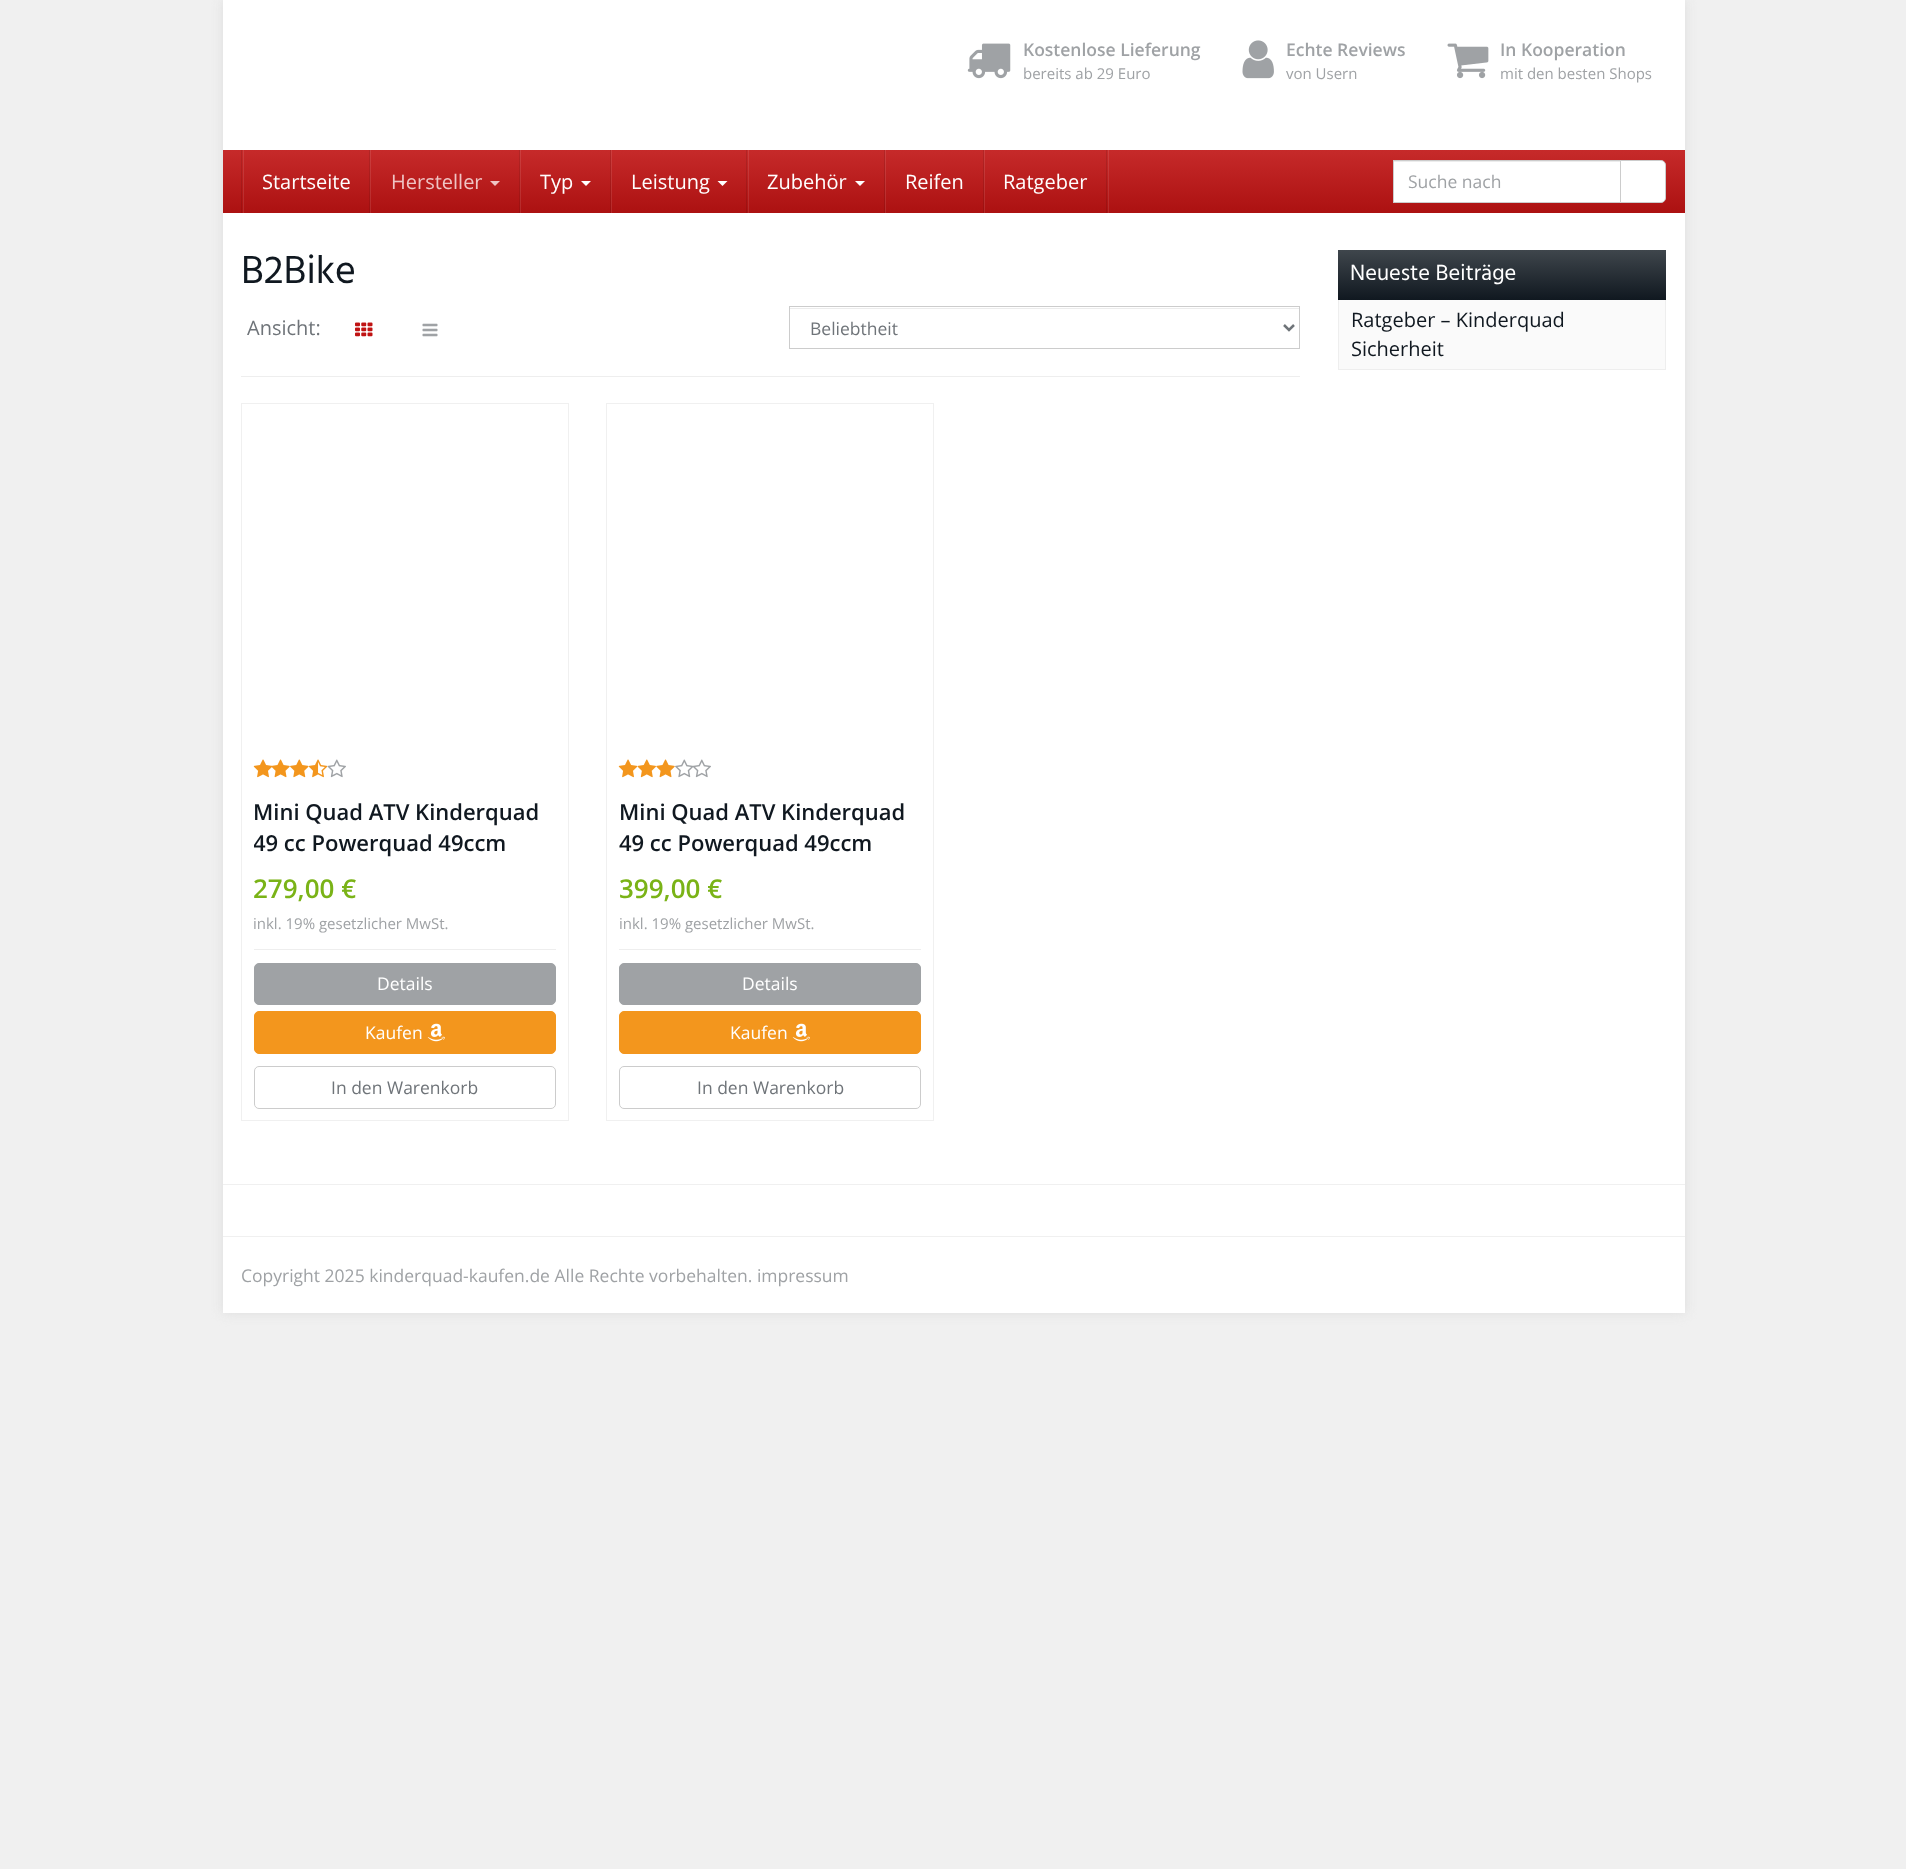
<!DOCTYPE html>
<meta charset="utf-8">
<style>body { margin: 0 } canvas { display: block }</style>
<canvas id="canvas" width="1906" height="1869"></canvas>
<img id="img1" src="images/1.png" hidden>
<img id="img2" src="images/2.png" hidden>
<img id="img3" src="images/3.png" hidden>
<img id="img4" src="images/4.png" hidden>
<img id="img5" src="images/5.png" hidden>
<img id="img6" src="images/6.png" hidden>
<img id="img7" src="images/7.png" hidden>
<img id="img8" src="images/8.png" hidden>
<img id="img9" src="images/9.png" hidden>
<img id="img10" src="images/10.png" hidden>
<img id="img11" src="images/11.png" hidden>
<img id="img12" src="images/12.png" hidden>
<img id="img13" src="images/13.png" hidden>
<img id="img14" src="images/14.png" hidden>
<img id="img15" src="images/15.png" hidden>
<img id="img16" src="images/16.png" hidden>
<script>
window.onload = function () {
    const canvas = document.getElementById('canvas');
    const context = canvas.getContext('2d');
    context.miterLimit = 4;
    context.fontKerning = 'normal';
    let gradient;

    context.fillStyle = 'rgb(240, 240, 240)';
    context.fillRect(0, 0, 1906, 1869);
    context.fillStyle = 'rgb(221, 221, 221)';
    context.filter = 'blur(6px)';
    context.beginPath();
    context.rect(223, 0, 1462, 1313);
    context.fill();
    context.filter = 'none';
    context.fillStyle = 'rgb(255, 255, 255)';
    context.fillRect(223, 0, 1462, 1313);
    context.drawImage(document.getElementById('img1'), 967, 43, 44, 36);
    context.drawImage(document.getElementById('img2'), 1242, 40, 32, 39);
    context.drawImage(document.getElementById('img3'), 1447, 43, 42, 36);
    gradient = context.createLinearGradient(954, 150, 954, 213);
    gradient.addColorStop(0, 'rgb(198, 42, 42)');
    gradient.addColorStop(1, 'rgb(172, 17, 17)');
    context.fillStyle = gradient;
    context.fillRect(223, 150, 1462, 63);
    gradient = context.createLinearGradient(954, 150, 954, 213);
    gradient.addColorStop(0, 'rgb(204, 63, 63)');
    gradient.addColorStop(1, 'rgb(180, 41, 41)');
    context.fillStyle = gradient;
    context.fillRect(984, 150, 1, 63);
    gradient = context.createLinearGradient(954, 150, 954, 213);
    gradient.addColorStop(0, 'rgb(178, 38, 38)');
    gradient.addColorStop(1, 'rgb(155, 15, 15)');
    context.fillStyle = gradient;
    context.fillRect(1106, 150, 1, 63);
    gradient = context.createLinearGradient(954, 150, 954, 213);
    gradient.addColorStop(0, 'rgb(204, 63, 63)');
    gradient.addColorStop(1, 'rgb(180, 41, 41)');
    context.fillStyle = gradient;
    context.fillRect(885, 150, 1, 63);
    gradient = context.createLinearGradient(954, 150, 954, 213);
    gradient.addColorStop(0, 'rgb(178, 38, 38)');
    gradient.addColorStop(1, 'rgb(155, 15, 15)');
    context.fillStyle = gradient;
    context.fillRect(983, 150, 1, 63);
    gradient = context.createLinearGradient(954, 150, 954, 213);
    gradient.addColorStop(0, 'rgb(204, 63, 63)');
    gradient.addColorStop(1, 'rgb(180, 41, 41)');
    context.fillStyle = gradient;
    context.fillRect(748, 150, 1, 63);
    gradient = context.createLinearGradient(954, 150, 954, 213);
    gradient.addColorStop(0, 'rgb(178, 38, 38)');
    gradient.addColorStop(1, 'rgb(155, 15, 15)');
    context.fillStyle = gradient;
    context.fillRect(884, 150, 1, 63);
    gradient = context.createLinearGradient(954, 150, 954, 213);
    gradient.addColorStop(0, 'rgb(204, 63, 63)');
    gradient.addColorStop(1, 'rgb(180, 41, 41)');
    context.fillStyle = gradient;
    context.fillRect(611, 150, 1, 63);
    gradient = context.createLinearGradient(954, 150, 954, 213);
    gradient.addColorStop(0, 'rgb(178, 38, 38)');
    gradient.addColorStop(1, 'rgb(155, 15, 15)');
    context.fillStyle = gradient;
    context.fillRect(746, 150, 1, 63);
    gradient = context.createLinearGradient(954, 150, 954, 213);
    gradient.addColorStop(0, 'rgb(204, 63, 63)');
    gradient.addColorStop(1, 'rgb(180, 41, 41)');
    context.fillStyle = gradient;
    context.fillRect(520, 150, 1, 63);
    gradient = context.createLinearGradient(954, 150, 954, 213);
    gradient.addColorStop(0, 'rgb(178, 38, 38)');
    gradient.addColorStop(1, 'rgb(155, 15, 15)');
    context.fillStyle = gradient;
    context.fillRect(610, 150, 1, 63);
    gradient = context.createLinearGradient(954, 150, 954, 213);
    gradient.addColorStop(0, 'rgb(204, 63, 63)');
    gradient.addColorStop(1, 'rgb(180, 41, 41)');
    context.fillStyle = gradient;
    context.fillRect(370, 150, 1, 63);
    gradient = context.createLinearGradient(954, 150, 954, 213);
    gradient.addColorStop(0, 'rgb(178, 38, 38)');
    gradient.addColorStop(1, 'rgb(155, 15, 15)');
    context.fillStyle = gradient;
    context.fillRect(519, 150, 1, 63);
    gradient = context.createLinearGradient(954, 150, 954, 213);
    gradient.addColorStop(0, 'rgb(204, 63, 63)');
    gradient.addColorStop(1, 'rgb(180, 41, 41)');
    context.fillStyle = gradient;
    context.fillRect(243, 150, 1, 63);
    gradient = context.createLinearGradient(954, 150, 954, 213);
    gradient.addColorStop(0, 'rgb(178, 38, 38)');
    gradient.addColorStop(1, 'rgb(155, 15, 15)');
    context.fillStyle = gradient;
    context.fillRect(369, 150, 1, 63);
    context.fillRect(241, 150, 1, 63);
    gradient = context.createLinearGradient(954, 150, 954, 213);
    gradient.addColorStop(0, 'rgb(204, 63, 63)');
    gradient.addColorStop(1, 'rgb(180, 41, 41)');
    context.fillStyle = gradient;
    context.fillRect(1108, 150, 1, 63);
    context.fillStyle = 'rgb(239, 196, 196)';
    context.beginPath();
    context.moveTo(490, 181);
    context.lineTo(500, 181);
    context.lineTo(495, 186);
    context.closePath();
    context.fill();
    context.fillStyle = 'rgb(255, 255, 255)';
    context.beginPath();
    context.moveTo(581, 181);
    context.lineTo(591, 181);
    context.lineTo(586, 186);
    context.closePath();
    context.fill();
    context.beginPath();
    context.moveTo(717.5, 181);
    context.lineTo(727.5, 181);
    context.lineTo(722.5, 186);
    context.closePath();
    context.fill();
    context.beginPath();
    context.moveTo(855, 181);
    context.lineTo(865, 181);
    context.lineTo(860, 186);
    context.closePath();
    context.fill();
    context.fillRect(1394, 162, 226, 40);
    context.fillStyle = 'rgb(236, 236, 236)';
    context.fillRect(1394, 161, 226, 1);
    context.strokeStyle = 'rgb(204, 204, 204)';
    context.strokeRect(1393.5, 160.5, 227, 42);
    context.fillStyle = 'rgb(255, 255, 255)';
    context.beginPath();
    context.roundRect(1620.5, 160.5, 45, 42, [0, 4.5, 4.5, 0]);
    context.fill();
    context.stroke();
    context.drawImage(document.getElementById('img4'), 355, 322, 18, 15);
    context.drawImage(document.getElementById('img5'), 422, 323, 16, 14);
    context.fillStyle = 'rgb(236, 236, 236)';
    context.fillRect(790, 308, 509, 1);
    context.strokeRect(789.5, 306.5, 510, 42);
    context.beginPath();
    context.moveTo(1284, 325);
    context.lineTo(1289, 330);
    context.lineTo(1294, 325);
    context.strokeStyle = 'rgb(111, 116, 121)';
    context.lineWidth = 2.5;
    context.stroke();
    context.fillStyle = 'rgb(238, 238, 238)';
    context.fillRect(241, 376, 1059, 1);
    context.strokeStyle = 'rgb(240, 240, 240)';
    context.lineWidth = 1;
    context.strokeRect(241.5, 403.5, 327, 717);
    context.drawImage(document.getElementById('img6'), 253, 759, 19, 19);
    context.drawImage(document.getElementById('img7'), 271, 759, 19, 19);
    context.drawImage(document.getElementById('img8'), 290, 759, 19, 19);
    context.drawImage(document.getElementById('img9'), 308, 759, 20, 19);
    context.drawImage(document.getElementById('img10'), 327, 759, 19, 19);
    context.fillRect(254, 949, 302, 1);
    context.fillStyle = 'rgb(159, 162, 165)';
    context.beginPath();
    context.roundRect(254.5, 963.5, 301, 41, 4.5);
    context.fill();
    context.strokeStyle = 'rgb(159, 162, 165)';
    context.stroke();
    context.fillStyle = 'rgb(243, 150, 29)';
    context.beginPath();
    context.roundRect(254.5, 1011.5, 301, 42, 4.5);
    context.fill();
    context.strokeStyle = 'rgb(243, 150, 29)';
    context.stroke();
    context.drawImage(document.getElementById('img11'), 427, 1023, 18, 19);
    context.beginPath();
    context.roundRect(254.5, 1066.5, 301, 42, 4.5);
    context.strokeStyle = 'rgb(204, 204, 204)';
    context.stroke();
    context.strokeStyle = 'rgb(240, 240, 240)';
    context.strokeRect(606.5, 403.5, 327, 717);
    context.drawImage(document.getElementById('img12'), 618, 759, 20, 19);
    context.drawImage(document.getElementById('img13'), 637, 759, 19, 19);
    context.drawImage(document.getElementById('img14'), 656, 759, 19, 19);
    context.drawImage(document.getElementById('img15'), 675, 759, 19, 19);
    context.drawImage(document.getElementById('img16'), 693, 759, 18, 19);
    context.fillStyle = 'rgb(238, 238, 238)';
    context.fillRect(619, 949, 302, 1);
    context.fillStyle = 'rgb(159, 162, 165)';
    context.beginPath();
    context.roundRect(619.5, 963.5, 301, 41, 4.5);
    context.fill();
    context.strokeStyle = 'rgb(159, 162, 165)';
    context.stroke();
    context.fillStyle = 'rgb(243, 150, 29)';
    context.beginPath();
    context.roundRect(619.5, 1011.5, 301, 42, 4.5);
    context.fill();
    context.strokeStyle = 'rgb(243, 150, 29)';
    context.stroke();
    context.drawImage(document.getElementById('img11'), 792, 1023, 18, 19);
    context.beginPath();
    context.roundRect(619.5, 1066.5, 301, 42, 4.5);
    context.strokeStyle = 'rgb(204, 204, 204)';
    context.stroke();
    context.fillStyle = 'rgb(250, 250, 250)';
    context.fillRect(1339, 300, 326, 69);
    context.strokeStyle = 'rgb(238, 238, 238)';
    context.strokeRect(1338.5, 250.5, 327, 119);
    gradient = context.createLinearGradient(1502, 250, 1502, 300);
    gradient.addColorStop(0, 'rgb(63, 70, 76)');
    gradient.addColorStop(1, 'rgb(16, 24, 32)');
    context.fillStyle = gradient;
    context.fillRect(1338, 250, 328, 50);
    context.fillStyle = 'rgb(240, 240, 240)';
    context.fillRect(223, 1184, 1462, 1);
    context.fillRect(223, 1236, 1462, 1);
    context.font = '600 17.5px Open Sans';
    context.fillStyle = 'rgb(159, 162, 165)';
    context.fillText('Kostenlose Lieferung', 1023, 56);
    context.font = '15px Open Sans';
    context.fillText('bereits ab 29 Euro', 1023, 79);
    context.font = '600 17.5px Open Sans';
    context.fillText('Echte Reviews', 1286, 56);
    context.font = '15px Open Sans';
    context.fillText('von Usern', 1286, 79);
    context.font = '600 17.5px Open Sans';
    context.fillText('In Kooperation', 1500, 56);
    context.font = '15px Open Sans';
    context.fillText('mit den besten Shops', 1500, 79);
    context.font = '20px Open Sans';
    context.fillStyle = 'rgb(255, 255, 255)';
    context.fillText('Startseite', 262, 189);
    context.fillStyle = 'rgb(239, 196, 196)';
    context.fillText('Hersteller', 391, 189);
    context.fillStyle = 'rgb(255, 255, 255)';
    context.fillText('Typ', 540, 189);
    context.fillText('Leistung', 631, 189);
    context.fillText('Zubehör', 767, 189);
    context.fillText('Reifen', 905, 189);
    context.fillText('Ratgeber', 1003, 189);
    context.font = '17.5px Open Sans';
    context.fillStyle = 'rgb(159, 162, 165)';
    context.fillText('Suche nach', 1408, 188);
    context.font = '40px Hind';
    context.fillStyle = 'rgb(16, 24, 32)';
    context.fillText('B2Bike', 241, 283);
    context.font = '20px Open Sans';
    context.fillStyle = 'rgb(111, 116, 121)';
    context.fillText('Ansicht:', 247, 335);
    context.font = '17.5px Open Sans';
    context.fillText('Beliebtheit', 810, 335);
    context.font = '600 22px Open Sans';
    context.fillStyle = 'rgb(16, 24, 32)';
    context.fillText('Mini Quad ATV Kinderquad', 253, 820);
    context.save();
    context.beginPath();
    context.rect(254, 796, 302, 63);
    context.clip();
    context.fillText('49 cc Powerquad 49ccm', 253, 851);
    context.restore();
    context.font = '600 26px Open Sans';
    context.fillStyle = 'rgb(122, 179, 23)';
    context.fillText('279,00 €', 253, 898);
    context.font = '15px Open Sans';
    context.fillStyle = 'rgb(159, 162, 165)';
    context.fillText('inkl. 19% gesetzlicher MwSt.', 253, 929);
    context.font = '17.5px Open Sans';
    context.fillStyle = 'rgb(255, 255, 255)';
    context.fillText('Details', 377, 990);
    context.fillText('Kaufen', 365, 1039);
    context.fillStyle = 'rgb(111, 116, 121)';
    context.fillText('In den Warenkorb', 331, 1094);
    context.font = '600 22px Open Sans';
    context.fillStyle = 'rgb(16, 24, 32)';
    context.fillText('Mini Quad ATV Kinderquad', 619, 820);
    context.fillText('49 cc Powerquad 49ccm', 619, 851);
    context.font = '600 26px Open Sans';
    context.fillStyle = 'rgb(122, 179, 23)';
    context.fillText('399,00 €', 619, 898);
    context.font = '15px Open Sans';
    context.fillStyle = 'rgb(159, 162, 165)';
    context.fillText('inkl. 19% gesetzlicher MwSt.', 619, 929);
    context.font = '17.5px Open Sans';
    context.fillStyle = 'rgb(255, 255, 255)';
    context.fillText('Details', 742, 990);
    context.fillText('Kaufen', 730, 1039);
    context.fillStyle = 'rgb(111, 116, 121)';
    context.fillText('In den Warenkorb', 697, 1094);
    context.font = '22.5px Hind';
    context.fillStyle = 'rgb(255, 255, 255)';
    context.fillText('Neueste Beiträge', 1350, 280);
    context.font = '20px Open Sans';
    context.fillStyle = 'rgb(16, 24, 32)';
    context.fillText('Ratgeber – Kinderquad', 1351, 327);
    context.fillText('Sicherheit', 1351, 356);
    context.font = '17.5px Open Sans';
    context.fillStyle = 'rgb(159, 162, 165)';
    context.fillText('Copyright 2025 kinderquad-kaufen.de Alle Rechte vorbehalten. impressum', 241, 1282);
};
</script>
